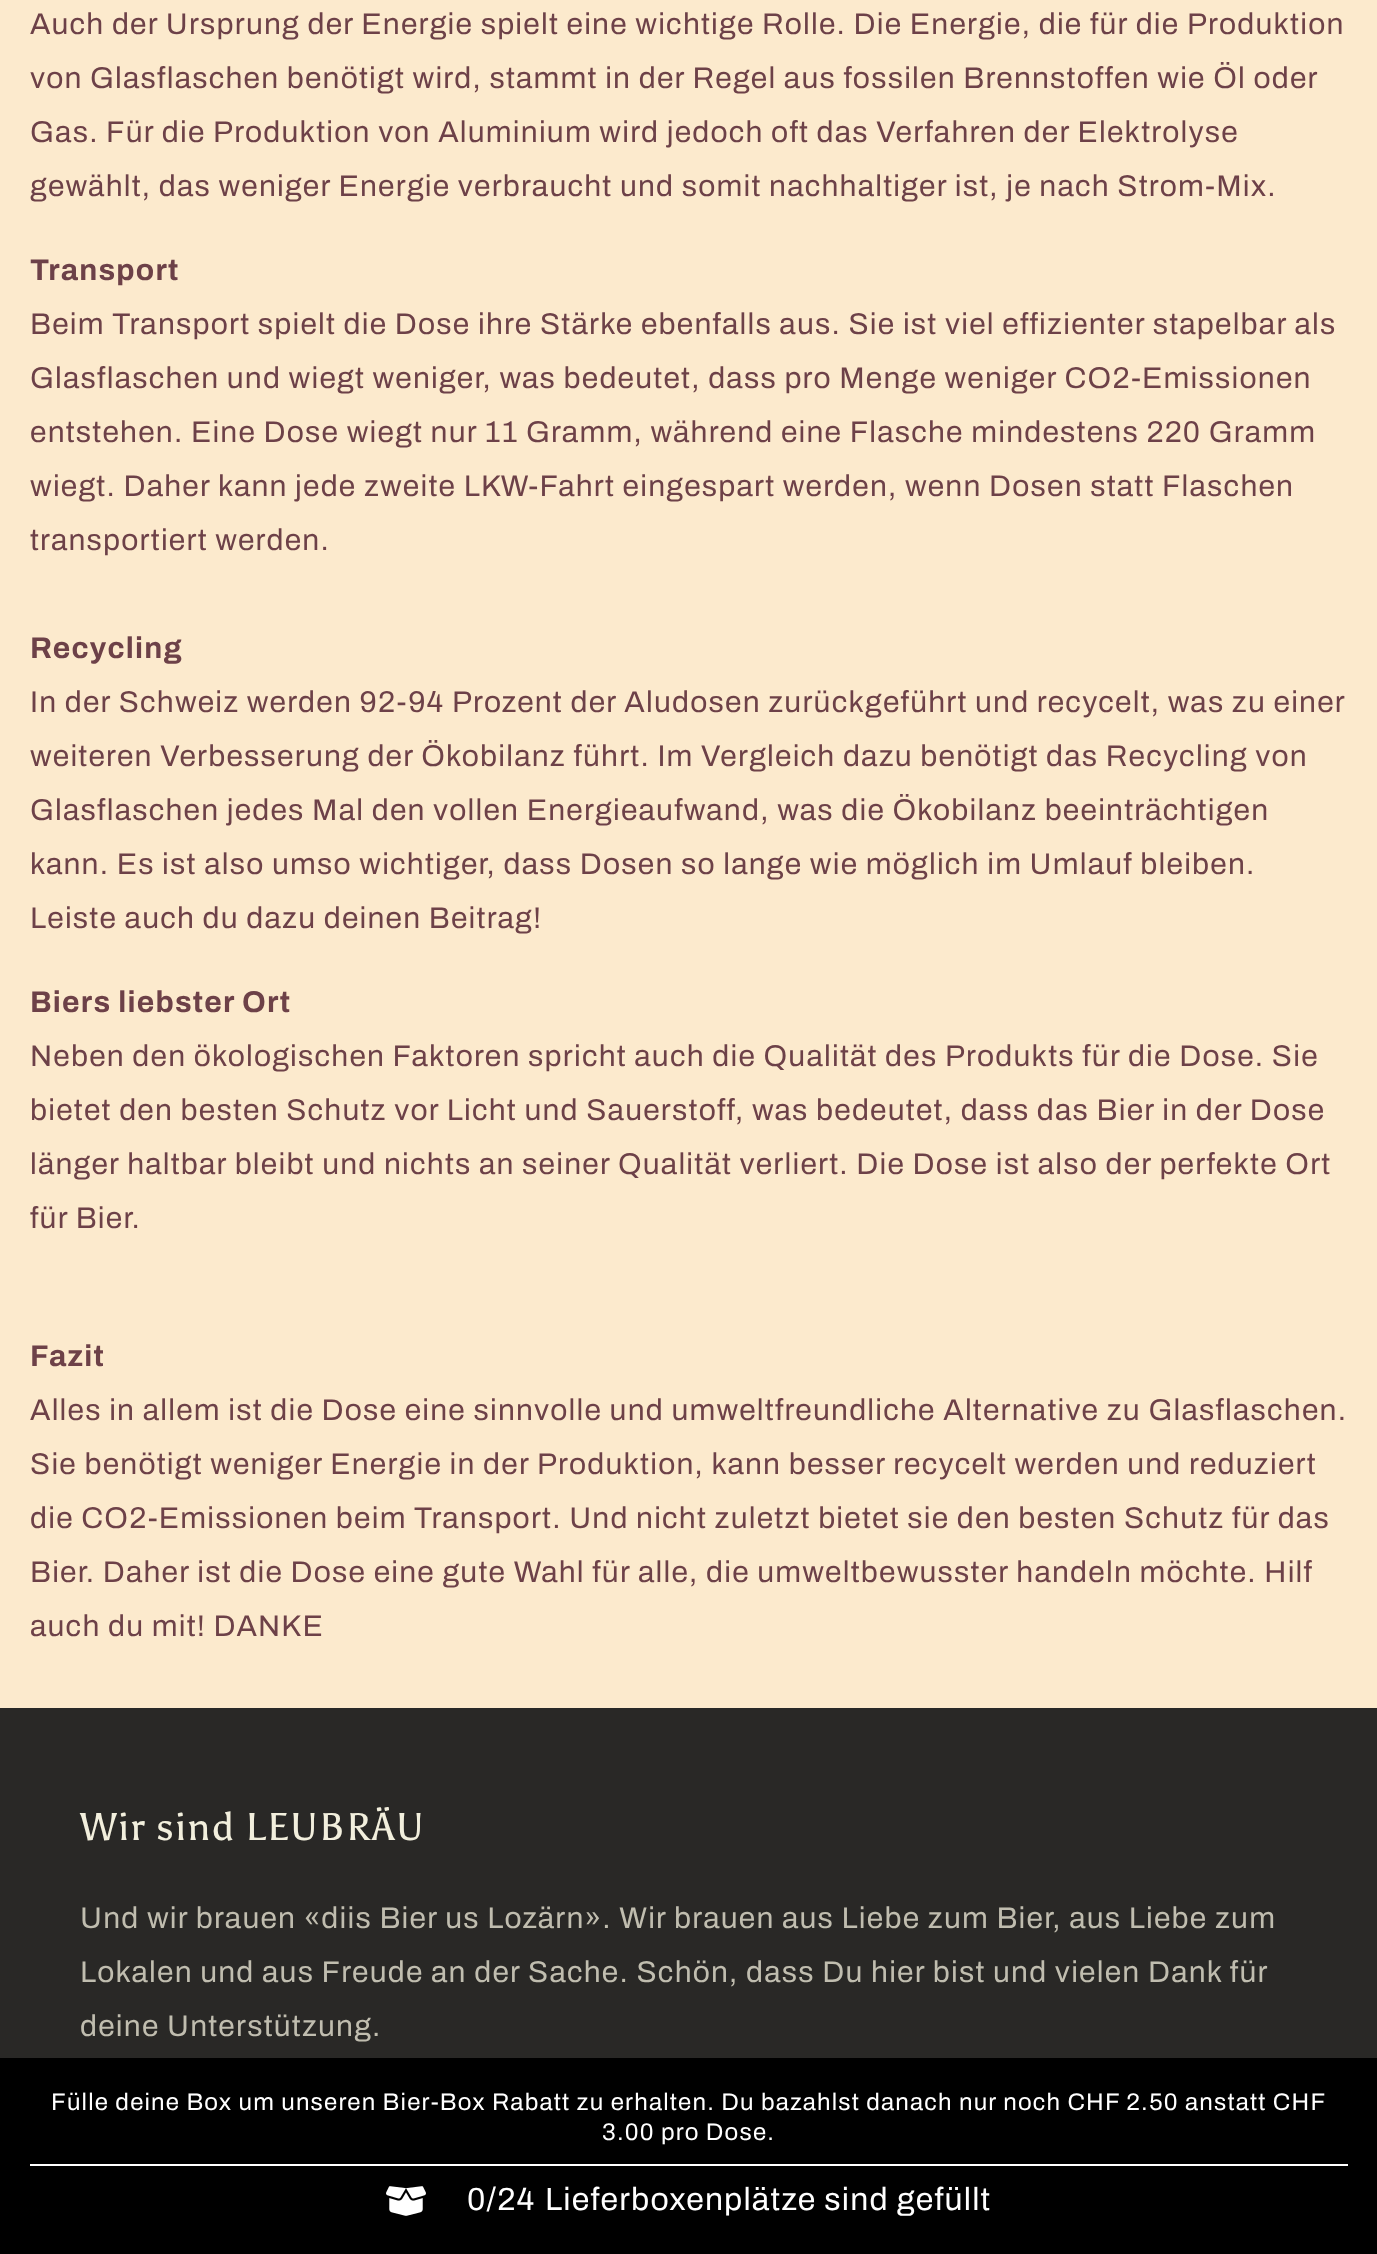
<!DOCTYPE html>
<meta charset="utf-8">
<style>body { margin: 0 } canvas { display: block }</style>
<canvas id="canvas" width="1377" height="2254"></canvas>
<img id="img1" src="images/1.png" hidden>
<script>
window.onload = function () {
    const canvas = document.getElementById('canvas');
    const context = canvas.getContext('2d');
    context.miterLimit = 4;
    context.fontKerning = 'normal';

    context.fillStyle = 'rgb(252, 234, 205)';
    context.fillRect(0, 0, 1377, 2254);
    context.fillStyle = 'rgb(41, 40, 38)';
    context.fillRect(0, 1708, 1377, 350);
    context.fillStyle = 'rgb(0, 0, 0)';
    context.fillRect(0, 2058, 1377, 196);
    context.fillStyle = 'rgb(255, 255, 255)';
    context.fillRect(30, 2164, 1318, 2);
    context.drawImage(document.getElementById('img1'), 386, 2186, 40, 30);
    context.letterSpacing = '1.2px';
    context.font = '30px Archivo';
    context.fillStyle = 'rgb(109, 65, 72)';
    context.fillText('Auch der Ursprung der Energie spielt eine wichtige Rolle. Die Energie, die für die Produktion', 30, 34);
    context.fillText('von Glasflaschen benötigt wird, stammt in der Regel aus fossilen Brennstoffen wie Öl oder', 30, 88);
    context.fillText('Gas. Für die Produktion von Aluminium wird jedoch oft das Verfahren der Elektrolyse', 30, 142);
    context.fillText('gewählt, das weniger Energie verbraucht und somit nachhaltiger ist, je nach Strom-Mix.', 30, 196);
    context.font = 'bold 30px Archivo';
    context.fillText('Transport', 30, 280);
    context.font = '30px Archivo';
    context.fillText('Beim Transport spielt die Dose ihre Stärke ebenfalls aus. Sie ist viel effizienter stapelbar als', 30, 334);
    context.fillText('Glasflaschen und wiegt weniger, was bedeutet, dass pro Menge weniger CO2-Emissionen', 30, 388);
    context.fillText('entstehen. Eine Dose wiegt nur 11 Gramm, während eine Flasche mindestens 220 Gramm', 30, 442);
    context.fillText('wiegt. Daher kann jede zweite LKW-Fahrt eingespart werden, wenn Dosen statt Flaschen', 30, 496);
    context.fillText('transportiert werden.', 30, 550);
    context.font = 'bold 30px Archivo';
    context.fillText('Recycling', 30, 658);
    context.font = '30px Archivo';
    context.fillText('In der Schweiz werden 92-94 Prozent der Aludosen zurückgeführt und recycelt, was zu einer', 30, 712);
    context.fillText('weiteren Verbesserung der Ökobilanz führt. Im Vergleich dazu benötigt das Recycling von', 30, 766);
    context.fillText('Glasflaschen jedes Mal den vollen Energieaufwand, was die Ökobilanz beeinträchtigen', 30, 820);
    context.fillText('kann. Es ist also umso wichtiger, dass Dosen so lange wie möglich im Umlauf bleiben.', 30, 874);
    context.fillText('Leiste auch du dazu deinen Beitrag!', 30, 928);
    context.font = 'bold 30px Archivo';
    context.fillText('Biers liebster Ort', 30, 1012);
    context.font = '30px Archivo';
    context.fillText('Neben den ökologischen Faktoren spricht auch die Qualität des Produkts für die Dose. Sie', 30, 1066);
    context.fillText('bietet den besten Schutz vor Licht und Sauerstoff, was bedeutet, dass das Bier in der Dose', 30, 1120);
    context.fillText('länger haltbar bleibt und nichts an seiner Qualität verliert. Die Dose ist also der perfekte Ort', 30, 1174);
    context.fillText('für Bier.', 30, 1228);
    context.font = 'bold 30px Archivo';
    context.fillText('Fazit', 30, 1366);
    context.font = '30px Archivo';
    context.fillText('Alles in allem ist die Dose eine sinnvolle und umweltfreundliche Alternative zu Glasflaschen.', 30, 1420);
    context.fillText('Sie benötigt weniger Energie in der Produktion, kann besser recycelt werden und reduziert', 30, 1474);
    context.fillText('die CO2-Emissionen beim Transport. Und nicht zuletzt bietet sie den besten Schutz für das', 30, 1528);
    context.fillText('Bier. Daher ist die Dose eine gute Wahl für alle, die umweltbewusster handeln möchte. Hilf', 30, 1582);
    context.fillText('auch du mit! DANKE', 30, 1636);
    context.letterSpacing = '1.5px';
    context.font = '38.5px Asul';
    context.fillStyle = 'rgb(242, 239, 221)';
    context.fillText('Wir sind LEUBRÄU', 80, 1840);
    context.letterSpacing = '1.2px';
    context.font = '30px Archivo';
    context.fillStyle = 'rgb(192, 189, 175)';
    context.fillText('Und wir brauen «diis Bier us Lozärn». Wir brauen aus Liebe zum Bier, aus Liebe zum', 80, 1928);
    context.fillText('Lokalen und aus Freude an der Sache. Schön, dass Du hier bist und vielen Dank für', 80, 1982);
    context.fillText('deine Unterstützung.', 80, 2036);
    context.font = '24px Archivo';
    context.fillStyle = 'rgb(255, 255, 255)';
    context.fillText('Fülle deine Box um unseren Bier-Box Rabatt zu erhalten. Du bazahlst danach nur noch CHF 2.50 anstatt CHF', 51, 2110);
    context.fillText('3.00 pro Dose.', 602, 2140);
    context.font = '32px Archivo';
    context.fillText('0/24', 467, 2210);
    context.fillText('Lieferboxenplätze sind gefüllt', 545, 2210);
};
</script>
